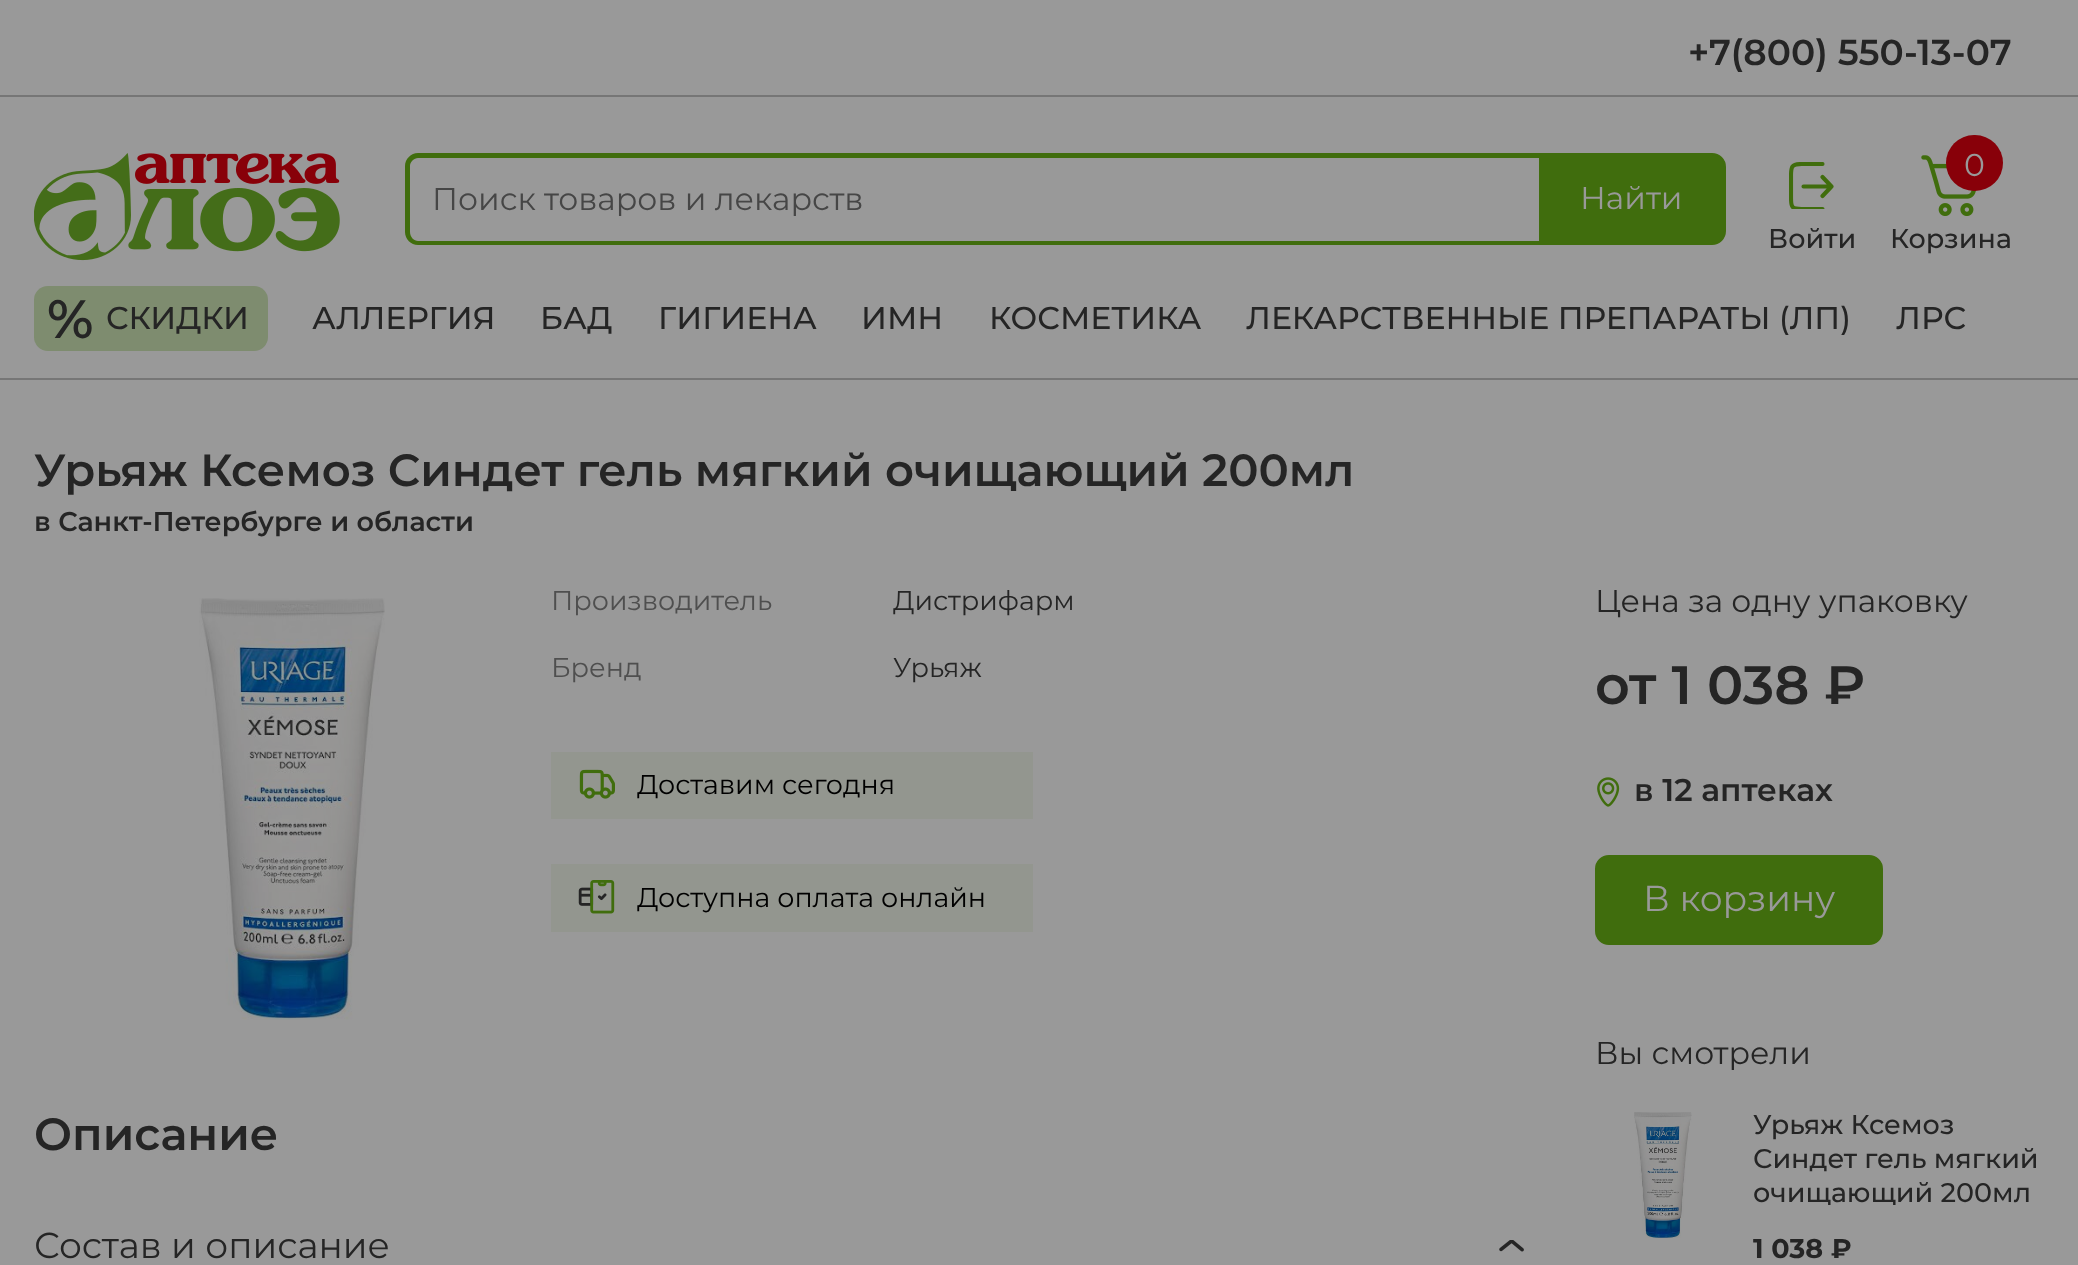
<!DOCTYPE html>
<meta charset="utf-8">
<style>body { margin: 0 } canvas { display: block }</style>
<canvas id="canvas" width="2078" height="1265"></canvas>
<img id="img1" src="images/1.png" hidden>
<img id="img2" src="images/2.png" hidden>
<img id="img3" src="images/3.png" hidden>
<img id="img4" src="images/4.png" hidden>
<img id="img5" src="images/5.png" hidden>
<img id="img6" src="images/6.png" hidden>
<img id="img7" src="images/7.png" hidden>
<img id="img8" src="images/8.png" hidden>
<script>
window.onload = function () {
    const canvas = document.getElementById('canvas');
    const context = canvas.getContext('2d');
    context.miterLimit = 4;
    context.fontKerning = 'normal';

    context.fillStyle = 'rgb(153, 153, 153)';
    context.fillRect(0, 0, 2078, 1265);
    context.fillStyle = 'rgb(118, 118, 118)';
    context.fillRect(0, 95, 2078, 2);
    context.fillRect(0, 378, 2078, 2);
    context.drawImage(document.getElementById('img1'), 34, 153, 306, 108);
    context.fillStyle = 'rgb(64, 109, 13)';
    context.beginPath();
    context.moveTo(418, 153);
    context.lineTo(1539, 153);
    context.lineTo(1539, 245);
    context.lineTo(418, 245);
    context.bezierCurveTo(411, 245, 405, 239, 405, 232);
    context.lineTo(405, 166);
    context.bezierCurveTo(405, 159, 411, 153, 418, 153);
    context.closePath();
    context.moveTo(418, 158);
    context.lineTo(1539, 158);
    context.lineTo(1539, 241);
    context.lineTo(418, 241);
    context.bezierCurveTo(414, 241, 410, 237, 410, 232);
    context.lineTo(410, 166);
    context.bezierCurveTo(410, 162, 414, 158, 418, 158);
    context.closePath();
    context.fill('evenodd');
    context.beginPath();
    context.roundRect(1540, 154, 185, 90, [0, 13, 13, 0]);
    context.fill();
    context.strokeStyle = 'rgb(64, 109, 13)';
    context.lineWidth = 2;
    context.stroke();
    context.save();
    context.beginPath();
    context.rect(1789, 162, 45, 47);
    context.clip();
    context.beginPath();
    context.moveTo(1822.5, 196);
    context.lineTo(1831.5, 186.5);
    context.lineTo(1822.5, 177);
    context.moveTo(1831.5, 186.5);
    context.lineTo(1803.5, 186.5);
    context.moveTo(1822.5, 164);
    context.lineTo(1801.5, 164);
    context.bezierCurveTo(1791.5, 164, 1791, 166.5, 1791, 176);
    context.lineTo(1791, 197.5);
    context.bezierCurveTo(1791, 207, 1791.5, 209, 1801.5, 209);
    context.lineTo(1822.5, 209);
    context.lineWidth = 4.1;
    context.lineCap = 'round';
    context.lineJoin = 'round';
    context.stroke();
    context.restore();
    context.drawImage(document.getElementById('img2'), 1921, 155, 55, 61);
    context.fillStyle = 'rgb(136, 0, 9)';
    context.beginPath();
    context.roundRect(1946, 135, 57, 56, 28);
    context.fill();
    context.fillStyle = 'rgb(126, 140, 111)';
    context.beginPath();
    context.roundRect(34, 286, 234, 65, 14);
    context.fill();
    context.drawImage(document.getElementById('img3'), 199, 598, 186, 422);
    context.fillStyle = 'rgb(147, 150, 143)';
    context.fillRect(551, 752, 482, 67);
    context.drawImage(document.getElementById('img4'), 579, 769, 36, 30);
    context.fillRect(551, 864, 482, 68);
    context.drawImage(document.getElementById('img5'), 578, 880, 37, 34);
    context.drawImage(document.getElementById('img6'), 1499, 1240, 25, 12);
    context.drawImage(document.getElementById('img7'), 1597, 777, 23, 30);
    context.fillStyle = 'rgb(64, 109, 13)';
    context.beginPath();
    context.roundRect(1596, 856, 286, 88, 13);
    context.fill();
    context.stroke();
    context.drawImage(document.getElementById('img8'), 1634, 1112, 58, 126);
    context.font = '600 36px Montserrat';
    context.fillStyle = 'rgb(37, 37, 37)';
    context.fillText('+7(800) 550-13-07', 1688, 65);
    context.font = '31.5px Montserrat';
    context.fillStyle = 'rgb(70, 70, 70)';
    context.fillText('Поиск товаров и лекарств', 432, 210);
    context.fillStyle = 'rgb(153, 153, 153)';
    context.fillText('Найти', 1580, 209);
    context.font = '500 27px Montserrat';
    context.fillStyle = 'rgb(37, 37, 37)';
    context.fillText('Войти', 1768, 248);
    context.font = '31.5px Montserrat';
    context.fillStyle = 'rgb(153, 153, 153)';
    context.fillText('0', 1964, 176);
    context.font = '500 27px Montserrat';
    context.fillStyle = 'rgb(37, 37, 37)';
    context.fillText('Корзина', 1890, 248);
    context.font = '600 54px Montserrat';
    context.fillText('%', 47, 338);
    context.font = '500 31.5px Montserrat';
    context.fillText('СКИДКИ', 106, 329);
    context.fillText('АЛЛЕРГИЯ', 312, 329);
    context.fillText('БАД', 540, 329);
    context.fillText('ГИГИЕНА', 658, 329);
    context.fillText('ИМН', 861, 329);
    context.fillText('КОСМЕТИКА', 989, 329);
    context.fillText('ЛЕКАРСТВЕННЫЕ ПРЕПАРАТЫ (ЛП)', 1246, 329);
    context.fillText('ЛРС', 1896, 329);
    context.font = '600 45px Montserrat';
    context.fillText('Урьяж Ксемоз Синдет гель мягкий очищающий 200мл', 34, 486);
    context.font = '600 27px Montserrat';
    context.fillText('в Санкт-Петербурге и области', 34, 531);
    context.font = '27px Montserrat';
    context.fillStyle = 'rgb(79, 79, 79)';
    context.fillText('Производитель', 551, 610);
    context.fillStyle = 'rgb(37, 37, 37)';
    context.fillText('Дистрифарм', 893, 610);
    context.fillStyle = 'rgb(79, 79, 79)';
    context.fillText('Бренд', 551, 677);
    context.fillStyle = 'rgb(37, 37, 37)';
    context.fillText('Урьяж', 893, 677);
    context.fillStyle = 'rgb(0, 0, 0)';
    context.fillText('Доставим сегодня', 637, 794);
    context.fillText('Доступна оплата онлайн', 637, 907);
    context.font = '600 45px Montserrat';
    context.fillStyle = 'rgb(37, 37, 37)';
    context.fillText('Описание', 34, 1150);
    context.font = '36px Montserrat';
    context.fillText('Состав и описание', 34, 1258);
    context.font = '31.5px Montserrat';
    context.fillText('Цена за одну упаковку', 1595, 612);
    context.font = '600 54px Montserrat';
    context.fillText('от 1 038 ₽', 1595, 704);
    context.font = '600 31.5px Montserrat';
    context.fillText('в 12 аптеках', 1634, 801);
    context.font = '36px Montserrat';
    context.fillStyle = 'rgb(153, 153, 153)';
    context.fillText('В корзину', 1643, 911);
    context.font = '31.5px Montserrat';
    context.fillStyle = 'rgb(37, 37, 37)';
    context.fillText('Вы смотрели', 1595, 1064);
    context.font = '500 27px Montserrat';
    context.fillText('Урьяж Ксемоз', 1753, 1134);
    context.fillText('Синдет гель мягкий', 1753, 1168);
    context.fillText('очищающий 200мл', 1753, 1202);
    context.font = 'bold 27px Montserrat';
    context.fillText('1 038 ₽', 1753, 1258);
};
</script>
